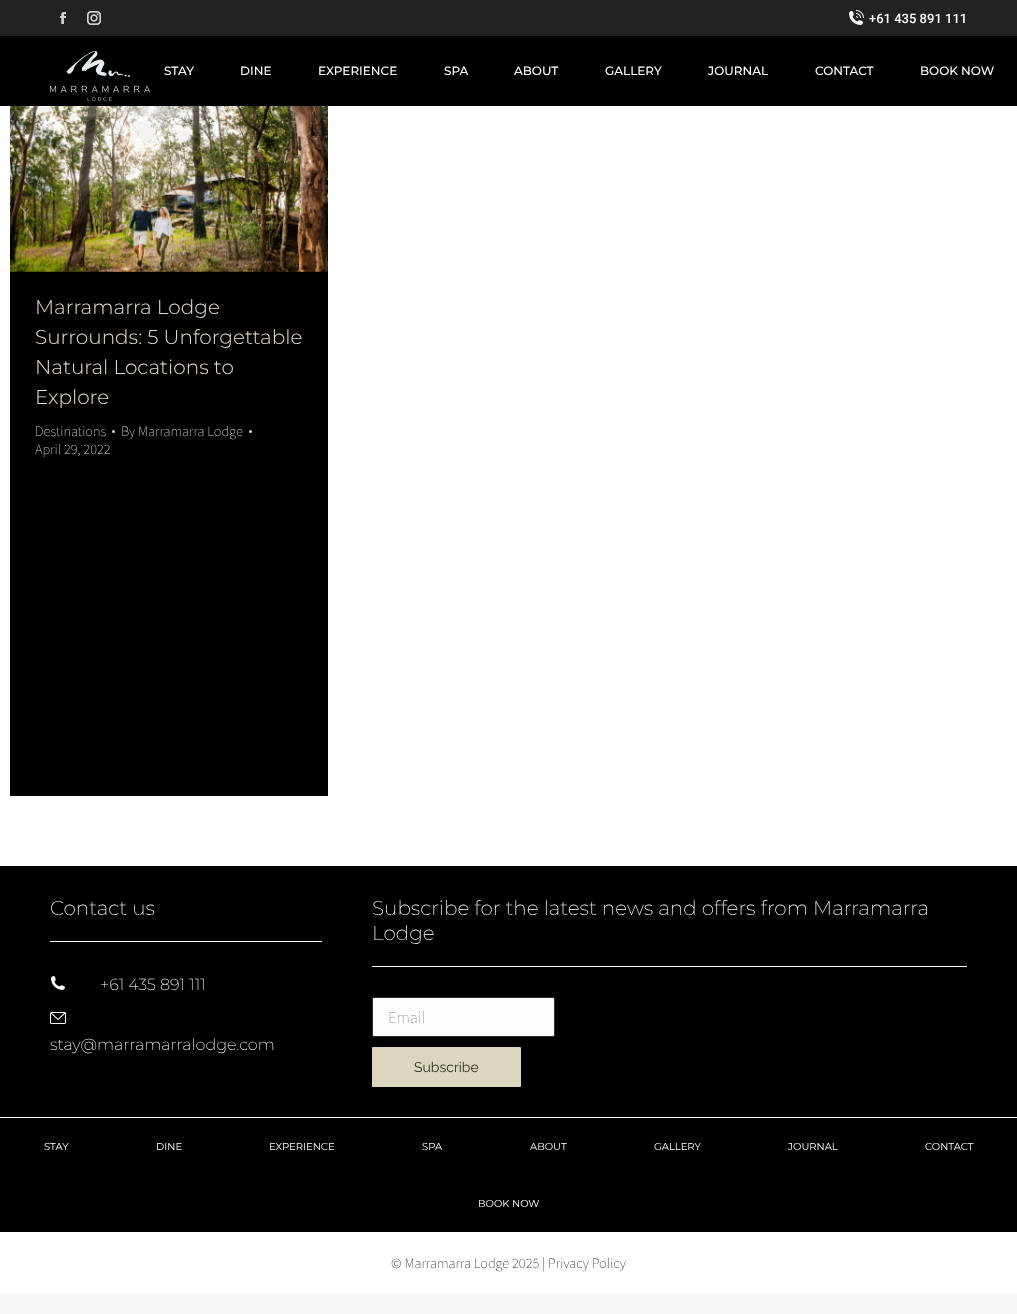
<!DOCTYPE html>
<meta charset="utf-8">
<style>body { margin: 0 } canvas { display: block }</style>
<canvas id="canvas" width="1017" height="1314"></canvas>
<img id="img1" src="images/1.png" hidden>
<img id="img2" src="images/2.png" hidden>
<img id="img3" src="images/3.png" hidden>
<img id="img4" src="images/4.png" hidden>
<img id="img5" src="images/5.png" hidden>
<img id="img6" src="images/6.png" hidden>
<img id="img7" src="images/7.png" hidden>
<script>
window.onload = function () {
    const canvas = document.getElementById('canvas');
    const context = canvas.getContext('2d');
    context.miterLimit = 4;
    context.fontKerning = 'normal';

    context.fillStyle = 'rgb(247, 247, 247)';
    context.fillRect(0, 0, 1017, 1314);
    context.fillStyle = 'rgb(255, 255, 255)';
    context.fillRect(0, 106, 1017, 760);
    context.fillStyle = 'rgb(0, 0, 0)';
    context.fillRect(0, 36, 1017, 70);
    context.fillStyle = 'rgb(34, 34, 34)';
    context.fillRect(0, 0, 1017, 36);
    context.drawImage(document.getElementById('img1'), 60, 12, 6, 12);
    context.drawImage(document.getElementById('img2'), 87, 11, 14, 14);
    context.drawImage(document.getElementById('img3'), 849, 10, 15, 15);
    context.drawImage(document.getElementById('img4'), 50, 51, 100, 50);
    context.fillStyle = 'rgb(0, 0, 0)';
    context.fillRect(10, 271, 318, 525);
    context.drawImage(document.getElementById('img5'), 10, 106, 318, 166);
    context.fillStyle = 'rgb(221, 214, 190)';
    context.beginPath();
    context.arc(113.5, 431.5, 1.5, 0, 2 * Math.PI);
    context.fill();
    context.beginPath();
    context.arc(250.5, 431.5, 1.5, 0, 2 * Math.PI);
    context.fill();
    context.fillStyle = 'rgb(0, 0, 0)';
    context.fillRect(0, 866, 1017, 366);
    context.fillStyle = 'rgb(255, 255, 255)';
    context.fillRect(50, 941, 272, 1);
    context.drawImage(document.getElementById('img6'), 51, 976, 14, 14);
    context.drawImage(document.getElementById('img7'), 50, 1012, 16, 12);
    context.fillRect(372, 966, 595, 1);
    context.fillStyle = 'rgb(253, 253, 253)';
    context.beginPath();
    context.roundRect(372.5, 997.5, 182, 39, 1.5);
    context.fill();
    context.strokeStyle = 'rgb(40, 51, 37)';
    context.stroke();
    context.fillStyle = 'rgb(221, 214, 190)';
    context.beginPath();
    context.roundRect(372, 1047, 149, 40, 1);
    context.fill();
    context.fillStyle = 'rgb(255, 255, 255)';
    context.fillRect(0, 1117, 1017, 1);
    context.fillRect(0, 1232, 1017, 61);
    context.font = '500 13px Roboto';
    context.fillText('+61 435 891 111', 869, 23);
    context.font = '500 12px Montserrat';
    context.fillText('STAY', 164, 75);
    context.fillText('DINE', 240, 75);
    context.fillText('EXPERIENCE', 318, 75);
    context.fillText('SPA', 444, 75);
    context.fillText('ABOUT', 514, 75);
    context.fillText('GALLERY', 605, 75);
    context.fillText('JOURNAL', 708, 75);
    context.fillText('CONTACT', 815, 75);
    context.fillText('BOOK NOW', 920, 75);
    context.font = '300 20px Montserrat';
    context.fillStyle = 'rgb(233, 220, 197)';
    context.fillText('Marramarra Lodge', 35, 314);
    context.fillText('Surrounds: 5 Unforgettable', 35, 344);
    context.fillText('Natural Locations to', 35, 374);
    context.fillText('Explore', 35, 404);
    context.font = '100 13px Noto Sans KR';
    context.fillStyle = 'rgb(221, 214, 190)';
    context.fillText('Destinations', 35, 436);
    context.fillText('By Marramarra Lodge', 121, 436);
    context.fillText('April 29, 2022', 35, 454);
    context.font = '200 20px Montserrat';
    context.fillStyle = 'rgb(255, 255, 255)';
    context.fillText('Contact us', 50, 915);
    context.font = '200 16px Montserrat';
    context.fillText('+61 435 891 111', 100, 990);
    context.fillText('stay@marramarralodge.com', 50, 1050);
    context.font = '200 20px Montserrat';
    context.fillText('Subscribe for the latest news and offers from Marramarra', 372, 915);
    context.fillText('Lodge', 372, 940);
    context.font = '100 15px Noto Sans KR';
    context.fillStyle = 'rgb(147, 152, 145)';
    context.fillText('Email', 388, 1023);
    context.font = '14px Raleway';
    context.fillStyle = 'rgb(40, 51, 37)';
    context.fillText('Subscribe', 414, 1072);
    context.font = '10px Montserrat';
    context.fillStyle = 'rgb(255, 255, 255)';
    context.fillText('STAY', 44, 1150);
    context.fillText('DINE', 156, 1150);
    context.fillText('EXPERIENCE', 269, 1150);
    context.fillText('SPA', 422, 1150);
    context.fillText('ABOUT', 530, 1150);
    context.fillText('GALLERY', 654, 1150);
    context.fillText('JOURNAL', 788, 1150);
    context.fillText('CONTACT', 925, 1150);
    context.fillText('BOOK NOW', 478, 1207);
    context.font = '100 13px Noto Sans KR';
    context.fillStyle = 'rgb(40, 51, 37)';
    context.fillText('© Marramarra Lodge 2025 | Privacy Policy', 391, 1268);
};
</script>
